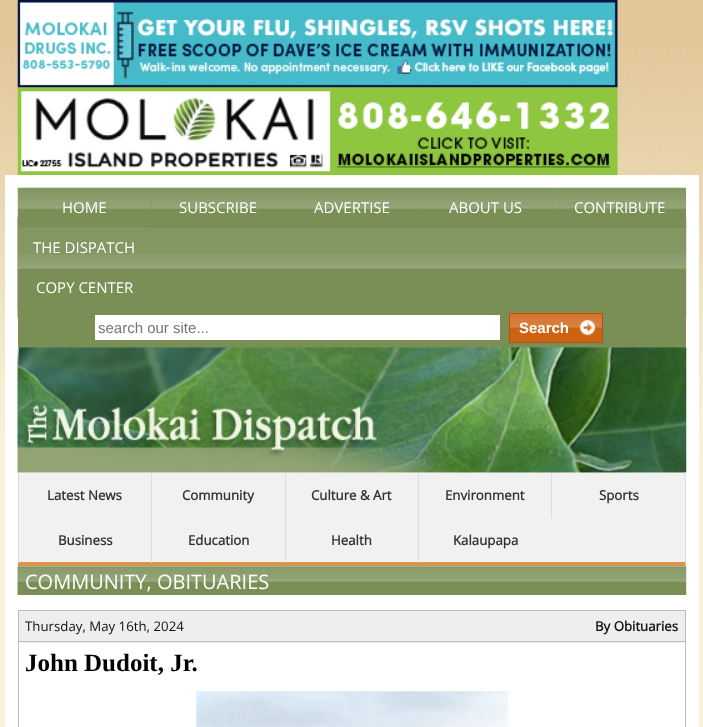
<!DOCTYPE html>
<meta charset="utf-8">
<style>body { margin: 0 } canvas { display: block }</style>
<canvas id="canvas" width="703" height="727"></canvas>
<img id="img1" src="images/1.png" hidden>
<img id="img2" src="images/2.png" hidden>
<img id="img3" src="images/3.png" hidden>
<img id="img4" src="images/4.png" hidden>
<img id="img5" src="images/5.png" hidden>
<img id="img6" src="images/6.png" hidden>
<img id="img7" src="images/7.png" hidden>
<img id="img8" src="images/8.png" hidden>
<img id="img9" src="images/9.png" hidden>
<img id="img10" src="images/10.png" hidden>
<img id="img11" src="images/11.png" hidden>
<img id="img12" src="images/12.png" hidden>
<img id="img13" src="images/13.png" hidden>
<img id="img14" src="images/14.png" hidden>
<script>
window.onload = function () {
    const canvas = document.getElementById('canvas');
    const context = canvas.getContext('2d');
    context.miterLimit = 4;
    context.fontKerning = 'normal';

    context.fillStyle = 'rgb(226, 198, 153)';
    context.fillRect(0, 0, 703, 727);
    context.drawImage(document.getElementById('img1'), 0, 47, 703, 680);
    context.drawImage(document.getElementById('img2'), 17, 0, 601, 88);
    context.drawImage(document.getElementById('img3'), 17, 87, 601, 88);
    context.fillStyle = 'rgb(255, 255, 255)';
    context.fillRect(5, 175, 694, 552);
    context.fillStyle = 'rgb(122, 143, 86)';
    context.fillRect(18, 317, 668, 31);
    context.drawImage(document.getElementById('img4'), 17, 217, 670, 101);
    context.drawImage(document.getElementById('img5'), 17, 187, 135, 41);
    context.fillRect(151, 188, 402, 40);
    context.drawImage(document.getElementById('img6'), 151, 187, 134, 22);
    context.drawImage(document.getElementById('img7'), 285, 187, 134, 22);
    context.drawImage(document.getElementById('img8'), 418, 187, 135, 22);
    context.fillRect(553, 227, 133, 1);
    context.drawImage(document.getElementById('img9'), 552, 187, 135, 40);
    context.drawImage(document.getElementById('img10'), 17, 227, 134, 81);
    context.fillStyle = 'rgb(255, 255, 255)';
    context.fillRect(95, 315, 405, 25);
    context.drawImage(document.getElementById('img11'), 508, 312, 95, 31);
    context.strokeStyle = 'rgb(172, 85, 16)';
    context.strokeRect(509.5, 313.5, 93, 29);
    context.drawImage(document.getElementById('img12'), 17, 347, 670, 126);
    context.fillStyle = 'rgb(241, 241, 241)';
    context.fillRect(19, 473, 667, 93);
    context.fillStyle = 'rgb(221, 221, 221)';
    context.beginPath();
    context.moveTo(686, 472);
    context.lineTo(686, 566);
    context.lineTo(685, 562);
    context.lineTo(685, 472);
    context.closePath();
    context.fill();
    context.fillStyle = 'rgb(219, 148, 76)';
    context.beginPath();
    context.moveTo(686, 566);
    context.lineTo(18, 566);
    context.lineTo(18, 562);
    context.lineTo(685, 562);
    context.closePath();
    context.fill();
    context.fillStyle = 'rgb(221, 221, 221)';
    context.fillRect(18, 473, 1, 90);
    context.fillRect(151, 473, 1, 90);
    context.fillRect(285, 473, 1, 90);
    context.fillRect(418, 473, 1, 90);
    context.fillRect(551, 473, 1, 45);
    context.drawImage(document.getElementById('img13'), 17, 566, 670, 29);
    context.strokeStyle = 'rgb(190, 190, 190)';
    context.strokeRect(18.5, 610.5, 667, 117);
    context.fillStyle = 'rgb(238, 238, 238)';
    context.fillRect(19, 611, 666, 32);
    context.fillStyle = 'rgb(190, 190, 190)';
    context.fillRect(19, 641, 666, 1);
    context.drawImage(document.getElementById('img14'), 196, 691, 313, 36);
    context.font = '15px Open Sans';
    context.fillStyle = 'rgb(255, 255, 255)';
    context.fillText('HOME', 62, 213);
    context.fillText('SUBSCRIBE', 179, 213);
    context.fillText('ADVERTISE', 314, 213);
    context.fillText('ABOUT US', 449, 213);
    context.fillText('CONTRIBUTE', 574, 213);
    context.fillText('THE DISPATCH', 33, 253);
    context.fillText('COPY CENTER', 36, 293);
    context.font = '15px Liberation Sans';
    context.fillStyle = 'rgb(117, 117, 117)';
    context.fillText('search our site...', 98, 333);
    context.font = 'bold 15px Liberation Sans';
    context.fillStyle = 'rgb(255, 255, 255)';
    context.fillText('Search', 519, 333);
    context.font = 'bold 13.25px Open Sans';
    context.fillStyle = 'rgb(51, 51, 51)';
    context.fillText('Latest News', 47, 500);
    context.fillText('Community', 182, 500);
    context.fillText('Culture & Art', 311, 500);
    context.fillText('Environment', 445, 500);
    context.fillText('Sports', 599, 500);
    context.fillText('Business', 58, 545);
    context.fillText('Education', 188, 545);
    context.fillText('Health', 331, 545);
    context.fillText('Kalaupapa', 453, 545);
    context.font = '20px Open Sans';
    context.fillStyle = 'rgb(255, 255, 255)';
    context.fillText('COMMUNITY, OBITUARIES', 25, 589);
    context.font = '13.25px Open Sans';
    context.fillStyle = 'rgb(17, 17, 17)';
    context.fillText('Thursday, May 16th, 2024', 25, 631);
    context.font = 'bold 13.25px Open Sans';
    context.fillText('By Obituaries', 595, 631);
    context.font = 'bold 25px Liberation Serif';
    context.fillStyle = 'rgb(0, 0, 0)';
    context.fillText('John Dudoit, Jr.', 25, 671);
};
</script>
